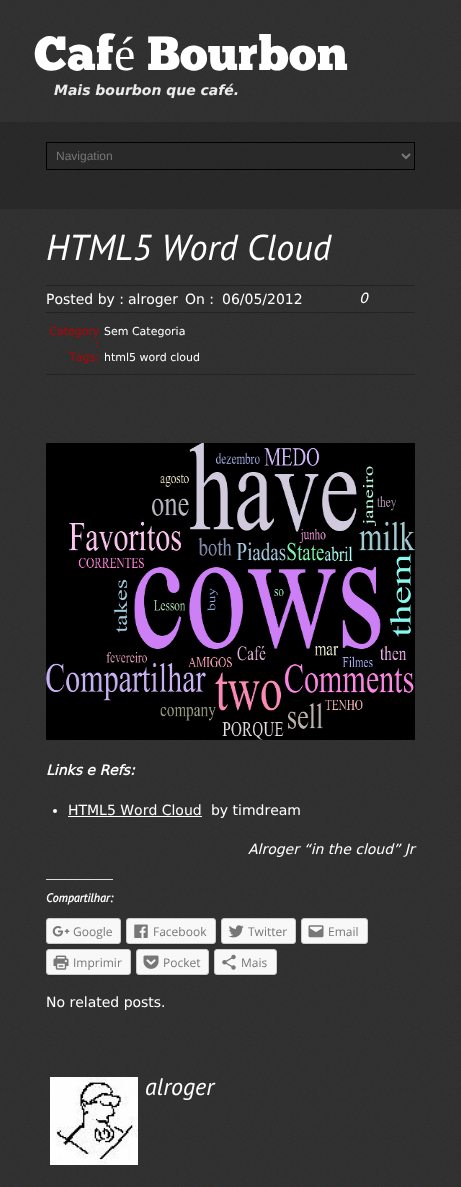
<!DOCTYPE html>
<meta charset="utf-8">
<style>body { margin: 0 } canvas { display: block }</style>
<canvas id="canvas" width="461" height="1187"></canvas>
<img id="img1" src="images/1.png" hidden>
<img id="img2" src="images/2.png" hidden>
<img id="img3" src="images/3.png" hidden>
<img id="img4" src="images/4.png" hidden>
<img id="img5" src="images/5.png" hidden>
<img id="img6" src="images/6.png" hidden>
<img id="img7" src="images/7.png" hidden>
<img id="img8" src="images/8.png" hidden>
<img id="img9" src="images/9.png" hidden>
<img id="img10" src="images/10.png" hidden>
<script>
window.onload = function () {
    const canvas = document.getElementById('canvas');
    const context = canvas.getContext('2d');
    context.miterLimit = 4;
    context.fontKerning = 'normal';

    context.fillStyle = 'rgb(255, 255, 255)';
    context.fillRect(0, 0, 461, 1187);
    context.drawImage(document.getElementById('img1'), 0, 0, 461, 1187);
    context.fillStyle = 'rgba(0, 0, 0, 0.15)';
    context.fillRect(0, 122, 461, 87);
    context.strokeStyle = 'rgb(0, 0, 0)';
    context.strokeRect(46.5, 142.5, 368, 27);
    context.beginPath();
    context.moveTo(402, 154);
    context.lineTo(406, 158);
    context.lineTo(410, 154);
    context.strokeStyle = 'rgb(122, 122, 122)';
    context.lineWidth = 2;
    context.stroke();
    context.fillStyle = 'rgb(35, 35, 35)';
    context.fillRect(46, 285, 369, 1);
    context.fillRect(46, 312, 369, 1);
    context.fillRect(46, 374, 369, 1);
    context.drawImage(document.getElementById('img2'), 46, 443, 369, 297);
    context.fillStyle = 'rgb(255, 255, 255)';
    context.beginPath();
    context.arc(55, 811, 2, 0, 2 * Math.PI);
    context.fill();
    context.fillRect(68, 816, 134, 1);
    context.fillStyle = 'rgb(221, 221, 221)';
    context.fillRect(46, 879, 67, 1);
    context.fillStyle = 'rgba(0, 0, 0, 0.08)';
    context.beginPath();
    context.moveTo(46, 941);
    context.bezierCurveTo(46, 948, 56, 945, 60, 945);
    context.lineTo(106, 945);
    context.bezierCurveTo(111, 945, 121, 948, 121, 941);
    context.bezierCurveTo(121, 943, 120, 944, 118, 944);
    context.lineTo(49, 944);
    context.bezierCurveTo(47, 944, 46, 943, 46, 941);
    context.closePath();
    context.fill();
    context.fillStyle = 'rgb(248, 248, 248)';
    context.beginPath();
    context.roundRect(46.5, 918.5, 74, 25, 2.5);
    context.fill();
    context.strokeStyle = 'rgb(204, 204, 204)';
    context.lineWidth = 1;
    context.stroke();
    context.drawImage(document.getElementById('img3'), 52, 926, 18, 11);
    context.fillStyle = 'rgba(0, 0, 0, 0.08)';
    context.beginPath();
    context.moveTo(126, 941);
    context.bezierCurveTo(126, 949, 139, 945, 143, 945);
    context.lineTo(199, 945);
    context.bezierCurveTo(203, 945, 216, 949, 216, 941);
    context.bezierCurveTo(216, 943, 215, 944, 213, 944);
    context.lineTo(129, 944);
    context.bezierCurveTo(127, 944, 126, 943, 126, 941);
    context.closePath();
    context.fill();
    context.fillStyle = 'rgb(248, 248, 248)';
    context.beginPath();
    context.roundRect(126.5, 918.5, 89, 25, 2.5);
    context.fill();
    context.stroke();
    context.drawImage(document.getElementById('img4'), 134, 924, 14, 14);
    context.fillStyle = 'rgba(0, 0, 0, 0.08)';
    context.beginPath();
    context.moveTo(221, 941);
    context.bezierCurveTo(221, 948, 231, 945, 236, 945);
    context.lineTo(282, 945);
    context.bezierCurveTo(286, 945, 296, 948, 296, 941);
    context.bezierCurveTo(296, 943, 295, 944, 293, 944);
    context.lineTo(224, 944);
    context.bezierCurveTo(222, 944, 221, 943, 221, 941);
    context.closePath();
    context.fill();
    context.fillStyle = 'rgb(248, 248, 248)';
    context.beginPath();
    context.roundRect(221.5, 918.5, 74, 25, 2.5);
    context.fill();
    context.stroke();
    context.drawImage(document.getElementById('img5'), 229, 925, 15, 13);
    context.fillStyle = 'rgba(0, 0, 0, 0.08)';
    context.beginPath();
    context.moveTo(301, 941);
    context.bezierCurveTo(301, 948, 310, 945, 314, 945);
    context.lineTo(355, 945);
    context.bezierCurveTo(359, 945, 368, 948, 368, 941);
    context.bezierCurveTo(368, 943, 367, 944, 365, 944);
    context.lineTo(304, 944);
    context.bezierCurveTo(302, 944, 301, 943, 301, 941);
    context.closePath();
    context.fill();
    context.fillStyle = 'rgb(248, 248, 248)';
    context.beginPath();
    context.roundRect(301.5, 918.5, 66, 25, 2.5);
    context.fill();
    context.stroke();
    context.drawImage(document.getElementById('img6'), 308, 925, 16, 13);
    context.fillStyle = 'rgba(0, 0, 0, 0.08)';
    context.beginPath();
    context.moveTo(46, 972);
    context.bezierCurveTo(46, 979, 58, 976, 62, 976);
    context.lineTo(115, 976);
    context.bezierCurveTo(119, 976, 131, 979, 131, 972);
    context.bezierCurveTo(131, 974, 130, 975, 128, 975);
    context.lineTo(49, 975);
    context.bezierCurveTo(47, 975, 46, 974, 46, 972);
    context.closePath();
    context.fill();
    context.fillStyle = 'rgb(248, 248, 248)';
    context.beginPath();
    context.roundRect(46.5, 949.5, 84, 25, 2.5);
    context.fill();
    context.stroke();
    context.drawImage(document.getElementById('img7'), 53, 955, 16, 15);
    context.fillStyle = 'rgba(0, 0, 0, 0.08)';
    context.beginPath();
    context.moveTo(136, 972);
    context.bezierCurveTo(136, 979, 146, 976, 150, 976);
    context.lineTo(195, 976);
    context.bezierCurveTo(199, 976, 209, 979, 209, 972);
    context.bezierCurveTo(209, 974, 208, 975, 206, 975);
    context.lineTo(139, 975);
    context.bezierCurveTo(137, 975, 136, 974, 136, 972);
    context.closePath();
    context.fill();
    context.fillStyle = 'rgb(248, 248, 248)';
    context.beginPath();
    context.roundRect(136.5, 949.5, 72, 25, 2.5);
    context.fill();
    context.stroke();
    context.drawImage(document.getElementById('img8'), 143, 955, 16, 14);
    context.fillStyle = 'rgba(0, 0, 0, 0.08)';
    context.beginPath();
    context.moveTo(214, 972);
    context.bezierCurveTo(214, 978, 222, 976, 226, 976);
    context.lineTo(264, 976);
    context.bezierCurveTo(269, 976, 277, 978, 277, 972);
    context.bezierCurveTo(277, 974, 276, 975, 274, 975);
    context.lineTo(217, 975);
    context.bezierCurveTo(215, 975, 214, 974, 214, 972);
    context.closePath();
    context.fill();
    context.fillStyle = 'rgb(248, 248, 248)';
    context.beginPath();
    context.roundRect(214.5, 949.5, 62, 25, 2.5);
    context.fill();
    context.stroke();
    context.drawImage(document.getElementById('img9'), 222, 954, 14, 16);
    context.drawImage(document.getElementById('img10'), 50, 1077, 88, 88);
    context.font = '48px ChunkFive';
    context.fillStyle = 'rgb(255, 255, 255)';
    context.fillText('Caf', 34, 70);
    context.font = '48px Liberation Serif';
    context.fillText('é', 114, 70);
    context.font = '48px ChunkFive';
    context.fillText('Bourbon', 147, 70);
    context.font = 'italic bold 14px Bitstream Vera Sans';
    context.fillStyle = 'rgb(235, 235, 235)';
    context.fillText('Mais bourbon que café.', 54, 95);
    context.font = '12px Liberation Sans';
    context.fillStyle = 'rgb(119, 119, 119)';
    context.fillText('Navigation', 56, 160);
    context.font = 'italic 36px PT Sans';
    context.fillStyle = 'rgb(255, 255, 255)';
    context.fillText('HTML5 Word Cloud', 46, 260);
    context.font = '14px Bitstream Vera Sans';
    context.fillText('Posted by :', 46, 304);
    context.fillText('alroger', 128, 304);
    context.fillText('On :', 185, 304);
    context.fillText('06/05/2012', 222, 304);
    context.font = 'italic 14px Bitstream Vera Sans';
    context.fillText('0', 359, 303);
    context.font = 'bold 11px Bitstream Vera Sans';
    context.fillStyle = 'rgb(158, 11, 14)';
    context.fillText('Category', 49, 335);
    context.fillText(':', 95, 348);
    context.font = '11px Bitstream Vera Sans';
    context.fillStyle = 'rgb(255, 255, 255)';
    context.fillText('Sem Categoria', 104, 335);
    context.font = 'bold 11px Bitstream Vera Sans';
    context.fillStyle = 'rgb(158, 11, 14)';
    context.fillText('Tags:', 69, 361);
    context.font = '11px Bitstream Vera Sans';
    context.fillStyle = 'rgb(255, 255, 255)';
    context.fillText('html5 word cloud', 104, 361);
    context.font = 'italic bold 14px "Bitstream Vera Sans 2"';
    context.fillText('Links e Refs:', 46, 775);
    context.font = '14px Bitstream Vera Sans';
    context.fillText('HTML5 Word Cloud', 68, 815);
    context.fillText('by timdream', 211, 815);
    context.font = 'italic 14px Bitstream Vera Sans';
    context.fillText('Alroger “in the cloud” Jr', 248, 854);
    context.font = 'italic bold 12px PT Sans';
    context.fillText('Compartilhar:', 46, 902);
    context.font = '12px Open Sans';
    context.fillStyle = 'rgb(119, 119, 119)';
    context.fillText('Google', 73, 936);
    context.fillText('Facebook', 153, 936);
    context.fillText('Twitter', 248, 936);
    context.fillText('Email', 328, 936);
    context.fillText('Imprimir', 73, 967);
    context.fillText('Pocket', 163, 967);
    context.fillText('Mais', 241, 967);
    context.font = '14px Bitstream Vera Sans';
    context.fillStyle = 'rgb(255, 255, 255)';
    context.fillText('No related posts.', 46, 1007);
    context.font = 'italic 24px PT Sans';
    context.fillText('alroger', 145, 1095);
};
</script>
